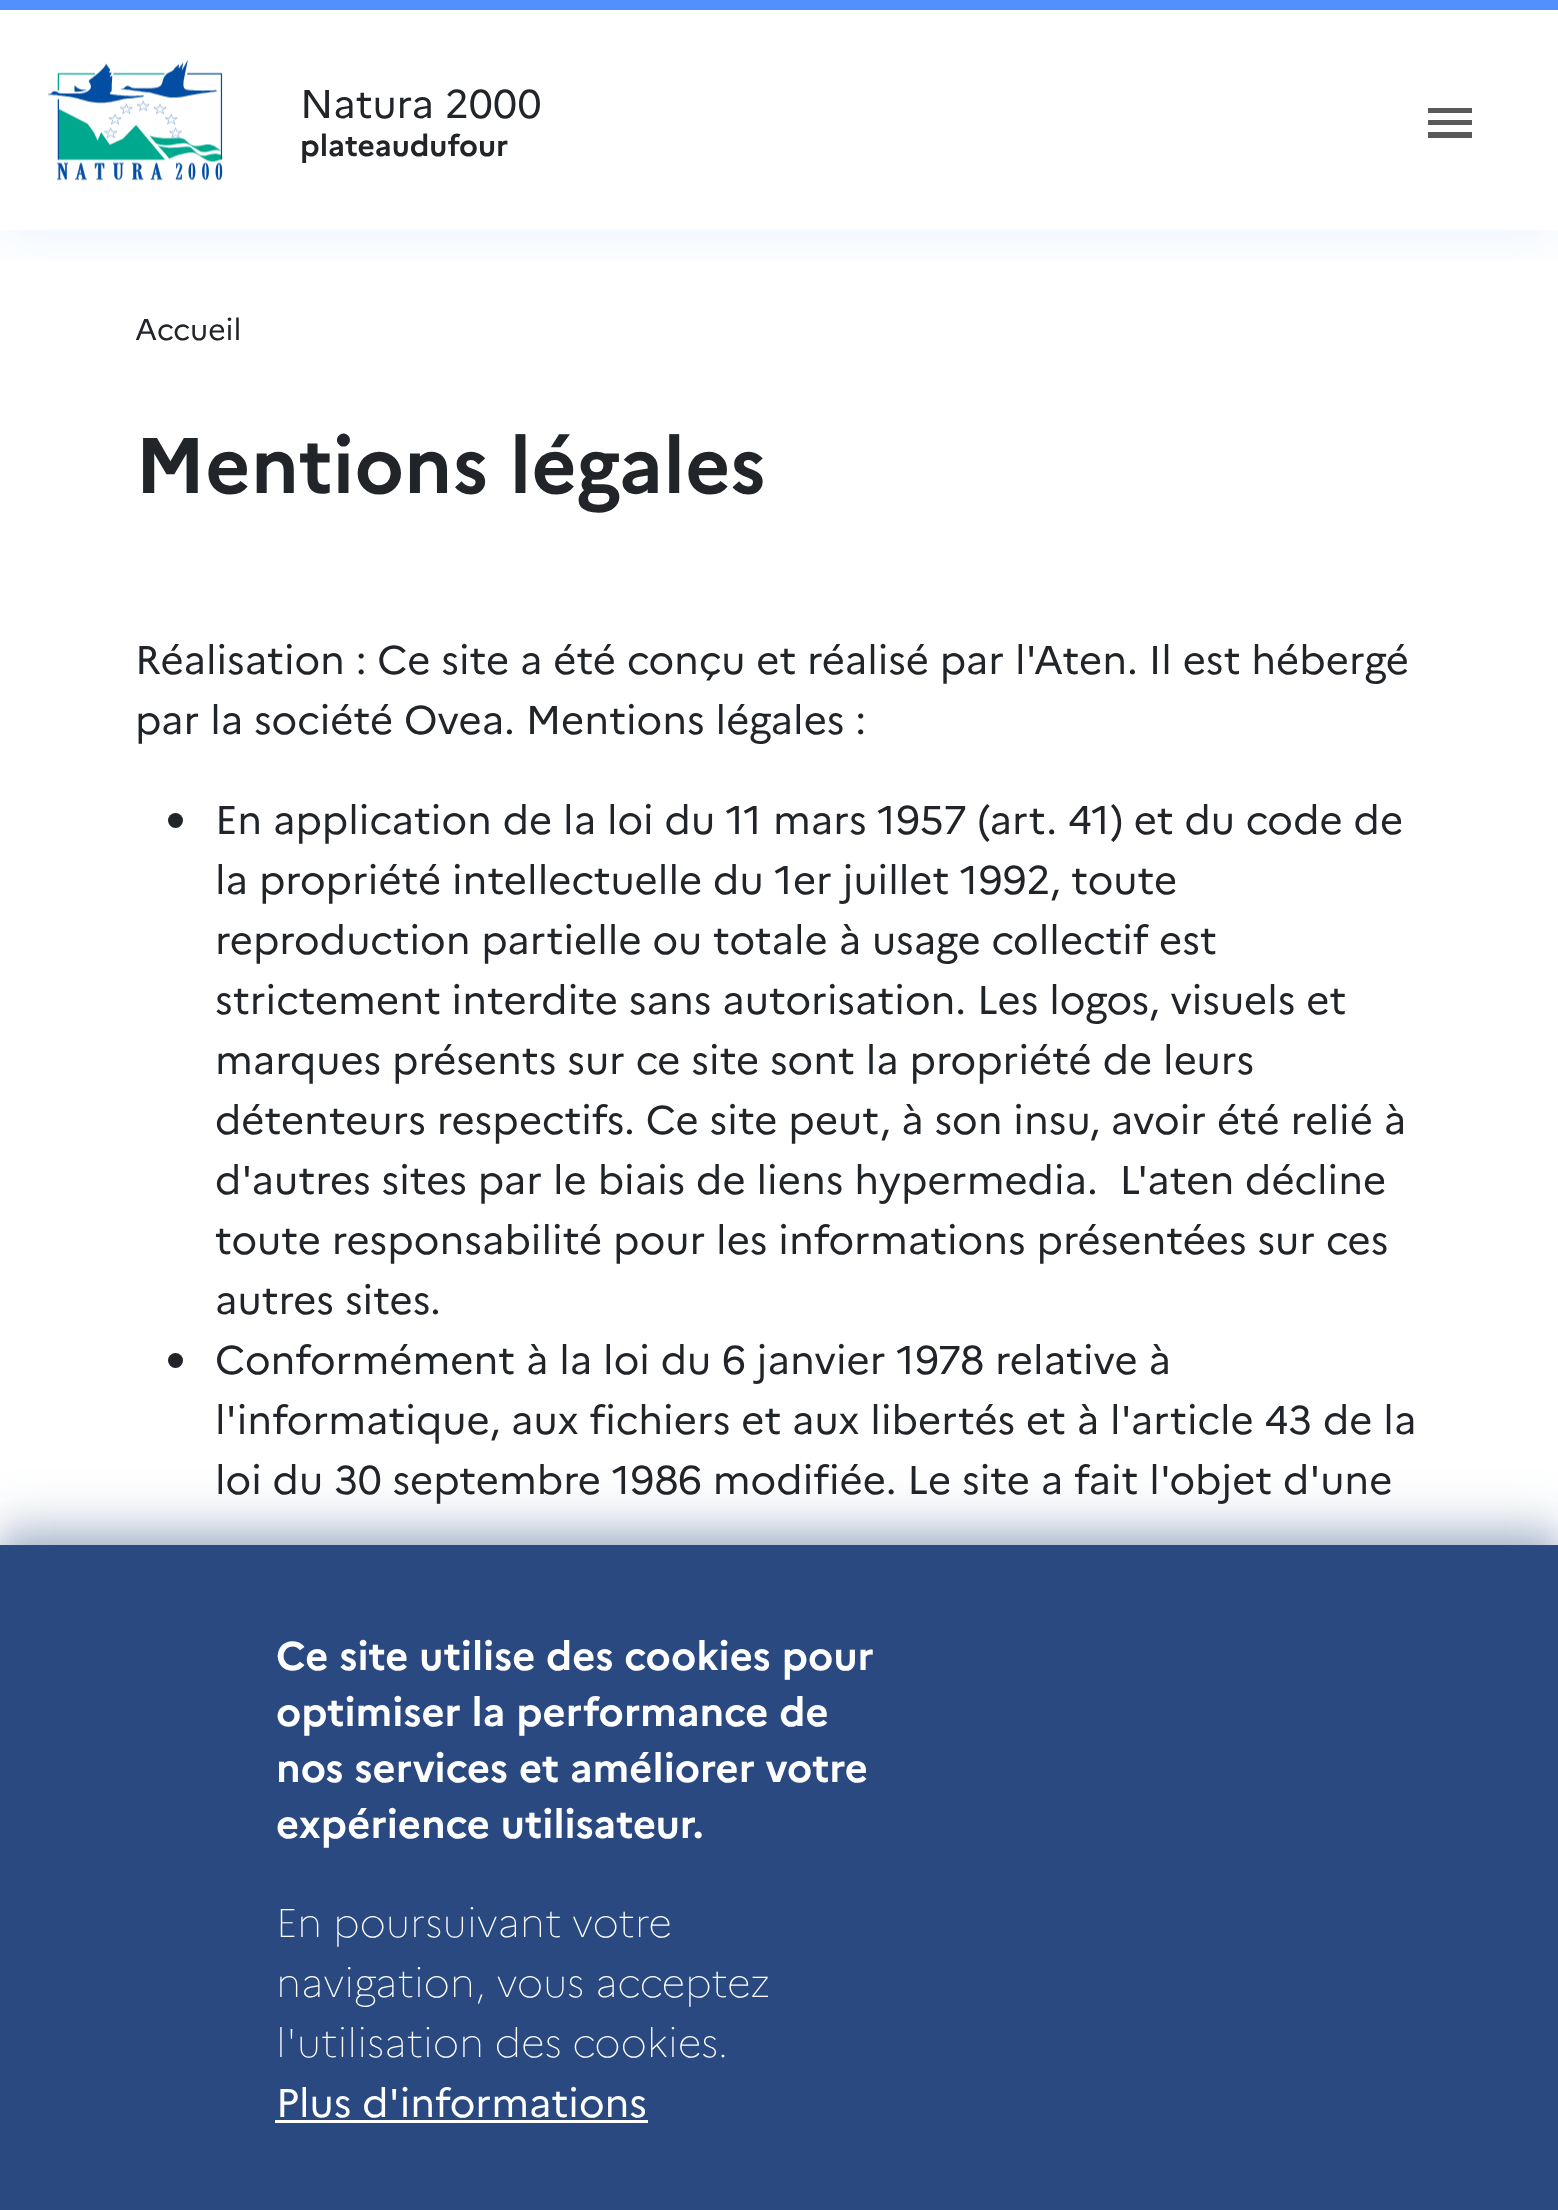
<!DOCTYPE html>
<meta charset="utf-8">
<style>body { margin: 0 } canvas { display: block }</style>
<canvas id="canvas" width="1558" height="2210"></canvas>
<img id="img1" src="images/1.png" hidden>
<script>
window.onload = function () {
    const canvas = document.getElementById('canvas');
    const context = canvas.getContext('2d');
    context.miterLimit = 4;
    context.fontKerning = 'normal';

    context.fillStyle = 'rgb(255, 255, 255)';
    context.fillRect(0, 0, 1558, 2210);
    context.save();
    context.beginPath();
    context.rect(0, 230, 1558, 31);
    context.clip();
    context.fillStyle = 'rgba(81, 145, 255, 0.1)';
    context.filter = 'blur(25px)';
    context.beginPath();
    context.rect(0, 10, 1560, 230);
    context.fill();
    context.filter = 'none';
    context.restore();
    context.fillStyle = 'rgb(81, 145, 255)';
    context.fillRect(0, 0, 1558, 10);
    context.drawImage(document.getElementById('img1'), 48, 59, 175, 122);
    context.fillStyle = 'rgb(89, 89, 89)';
    context.beginPath();
    context.moveTo(1428, 108);
    context.lineTo(1472, 108);
    context.lineTo(1472, 113);
    context.lineTo(1428, 113);
    context.closePath();
    context.moveTo(1428, 120);
    context.lineTo(1472, 120);
    context.lineTo(1472, 125);
    context.lineTo(1428, 125);
    context.closePath();
    context.moveTo(1428, 132);
    context.lineTo(1472, 132);
    context.lineTo(1472, 138);
    context.lineTo(1428, 138);
    context.closePath();
    context.fill();
    context.fillStyle = 'rgb(33, 37, 41)';
    context.beginPath();
    context.arc(175.5, 820.5, 7.5, 0, 2 * Math.PI);
    context.fill();
    context.beginPath();
    context.arc(175.5, 1360.5, 7.5, 0, 2 * Math.PI);
    context.fill();
    context.fillStyle = 'rgba(41, 73, 128, 0.3)';
    context.filter = 'blur(17.5px)';
    context.beginPath();
    context.rect(0, 1538, 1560, 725);
    context.fill();
    context.filter = 'none';
    context.fillStyle = 'rgba(41, 73, 128, 0.2)';
    context.filter = 'blur(25px)';
    context.beginPath();
    context.rect(0, 1520, 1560, 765);
    context.fill();
    context.filter = 'none';
    context.fillStyle = 'rgb(41, 73, 128)';
    context.fillRect(0, 1545, 1558, 665);
    context.fillStyle = 'rgb(255, 255, 255)';
    context.fillRect(275, 2120, 373, 3);
    context.font = '40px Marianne';
    context.fillStyle = 'rgb(33, 37, 41)';
    context.fillText('Natura 2000', 300, 118);
    context.save();
    context.beginPath();
    context.rect(300, 78, 1040, 85);
    context.clip();
    context.font = 'bold 30px Marianne';
    context.fillText('plateaudufour', 300, 156);
    context.restore();
    context.font = '30px Marianne';
    context.fillText('Accueil', 135, 340);
    context.font = 'bold 78.5px Marianne';
    context.fillText('Mentions légales', 135, 493);
    context.font = '40px Marianne';
    context.fillText('Réalisation : Ce site a été conçu et réalisé par l\'Aten. Il est hébergé', 135, 674);
    context.fillText('par la société Ovea. Mentions légales :', 135, 734);
    context.fillText('En application de la loi du 11 mars 1957 (art. 41) et du code de', 215, 834);
    context.fillText('la propriété intellectuelle du 1er juillet 1992, toute', 215, 894);
    context.fillText('reproduction partielle ou totale à usage collectif est', 215, 954);
    context.fillText('strictement interdite sans autorisation. Les logos, visuels et', 215, 1014);
    context.fillText('marques présents sur ce site sont la propriété de leurs', 215, 1074);
    context.fillText('détenteurs respectifs. Ce site peut, à son insu, avoir été relié à', 215, 1134);
    context.fillText('d\'autres sites par le biais de liens hypermedia.  L\'aten décline', 215, 1194);
    context.fillText('toute responsabilité pour les informations présentées sur ces', 215, 1254);
    context.fillText('autres sites.', 215, 1314);
    context.fillText('Conformément à la loi du 6 janvier 1978 relative à', 215, 1374);
    context.fillText('l\'informatique, aux fichiers et aux libertés et à l\'article 43 de la', 215, 1434);
    context.fillText('loi du 30 septembre 1986 modifiée. Le site a fait l\'objet d\'une', 215, 1494);
    context.font = 'bold 40px Marianne';
    context.fillStyle = 'rgb(255, 255, 255)';
    context.fillText('Ce site utilise des cookies pour', 276, 1670);
    context.fillText('optimiser la performance de', 276, 1726);
    context.fillText('nos services et améliorer votre', 276, 1782);
    context.fillText('expérience utilisateur.', 276, 1838);
    context.font = '100 40px Marianne';
    context.fillText('En poursuivant votre', 276, 1937);
    context.fillText('navigation, vous acceptez', 276, 1997);
    context.fillText('l\'utilisation des cookies.', 276, 2057);
    context.font = '40px Marianne';
    context.fillText('Plus d\'informations', 276, 2117);
};
</script>
